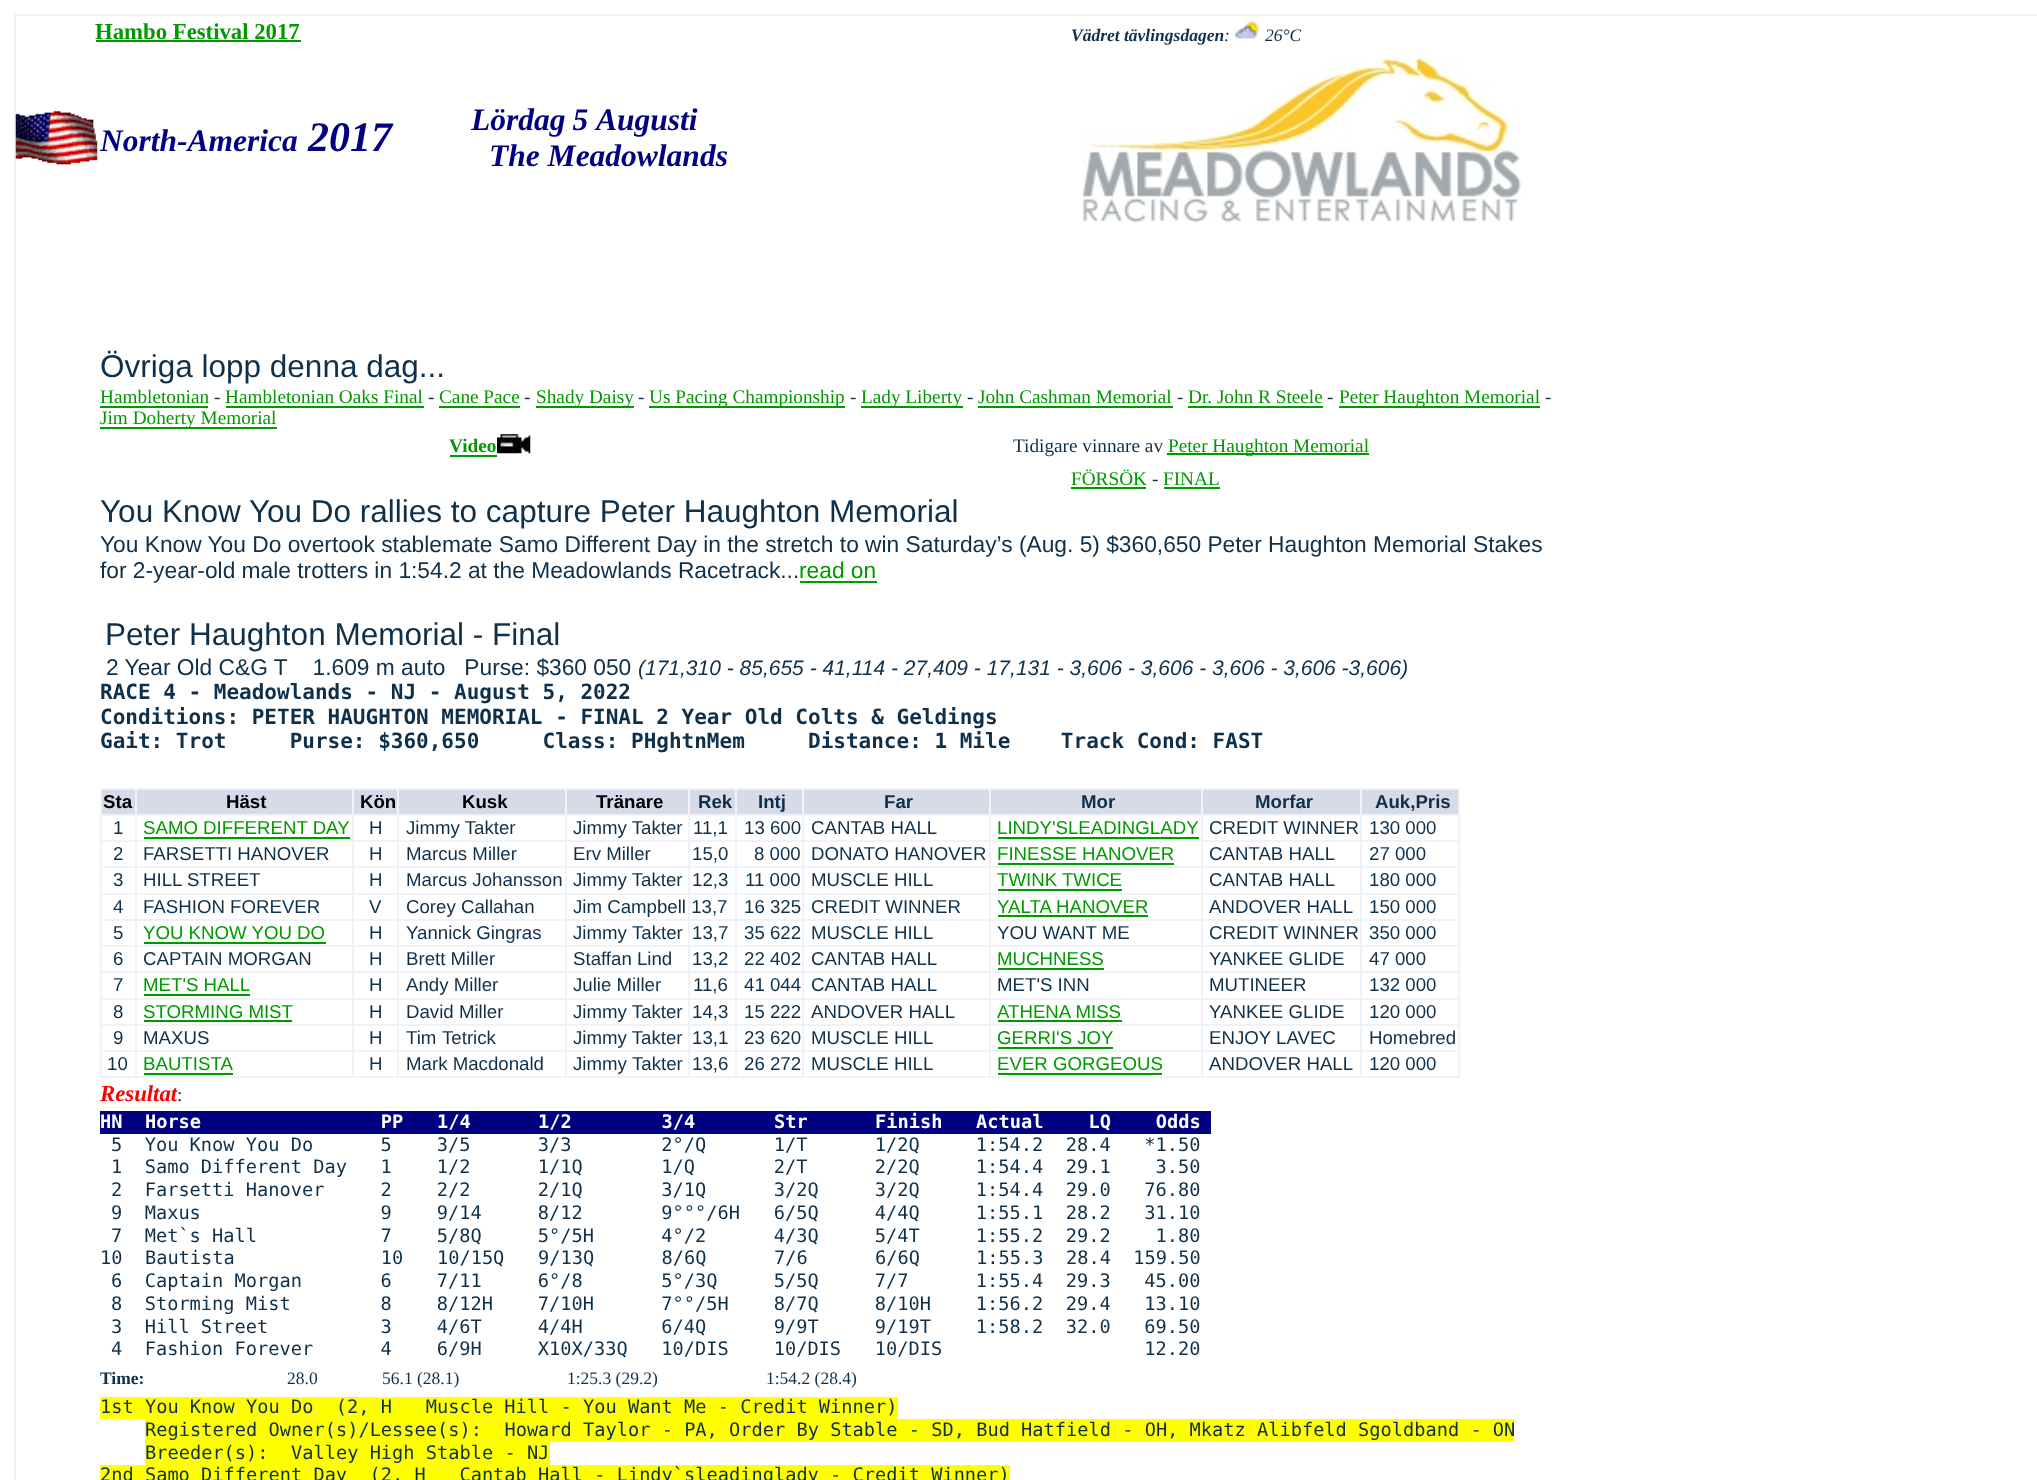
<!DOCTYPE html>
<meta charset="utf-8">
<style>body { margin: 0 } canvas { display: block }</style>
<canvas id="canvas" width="2037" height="1480"></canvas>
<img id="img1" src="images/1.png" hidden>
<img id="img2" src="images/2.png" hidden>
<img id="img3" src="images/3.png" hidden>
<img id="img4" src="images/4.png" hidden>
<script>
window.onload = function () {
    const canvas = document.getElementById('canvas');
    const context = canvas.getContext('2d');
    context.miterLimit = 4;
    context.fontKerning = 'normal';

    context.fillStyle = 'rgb(255, 255, 255)';
    context.fillRect(0, 0, 2037, 1480);
    context.fillStyle = 'rgb(241, 242, 247)';
    context.fillRect(14, 14, 2023, 2);
    context.fillRect(14, 14, 2, 1466);
    context.fillStyle = 'rgb(0, 153, 0)';
    context.fillRect(96, 40, 205, 2);
    context.drawImage(document.getElementById('img1'), 1235, 20, 24, 19);
    context.drawImage(document.getElementById('img2'), 15, 111, 83, 54);
    context.drawImage(document.getElementById('img3'), 1082, 57, 440, 166);
    context.fillRect(100, 406, 108, 2);
    context.fillRect(226, 406, 198, 2);
    context.fillRect(439, 406, 81, 2);
    context.fillRect(536, 406, 98, 2);
    context.fillRect(649, 406, 196, 2);
    context.fillRect(861, 406, 102, 2);
    context.fillRect(978, 406, 195, 2);
    context.fillRect(1188, 406, 135, 2);
    context.fillRect(1339, 406, 201, 2);
    context.fillRect(100, 427, 177, 2);
    context.fillRect(450, 455, 47, 2);
    context.drawImage(document.getElementById('img4'), 497, 434, 34, 20);
    context.fillRect(1167, 453, 202, 2);
    context.fillRect(1071, 487, 75, 2);
    context.fillRect(1164, 487, 56, 2);
    context.fillRect(800, 581, 77, 2);
    context.fillStyle = 'rgb(241, 242, 247)';
    context.fillRect(100, 788, 1360, 2);
    context.fillRect(1458, 788, 2, 290);
    context.fillRect(100, 1076, 1360, 2);
    context.fillRect(100, 788, 2, 290);
    context.fillStyle = 'rgb(214, 219, 231)';
    context.fillRect(102, 790, 33, 24);
    context.fillRect(137, 790, 215, 24);
    context.fillStyle = 'rgb(241, 242, 247)';
    context.fillRect(1360, 814, 100, 2);
    context.fillRect(1360, 840, 100, 2);
    context.fillRect(1360, 866, 100, 2);
    context.fillRect(1360, 893, 100, 2);
    context.fillRect(1360, 919, 100, 2);
    context.fillRect(1360, 945, 100, 2);
    context.fillRect(1360, 971, 100, 2);
    context.fillRect(1360, 998, 100, 2);
    context.fillRect(1360, 1024, 100, 2);
    context.fillRect(1360, 1050, 100, 2);
    context.fillRect(1360, 1050, 2, 28);
    context.fillRect(1201, 1050, 161, 2);
    context.fillRect(1360, 1024, 2, 28);
    context.fillRect(1201, 1024, 161, 2);
    context.fillRect(1360, 998, 2, 28);
    context.fillRect(1201, 998, 161, 2);
    context.fillRect(1360, 971, 2, 28);
    context.fillRect(1201, 971, 161, 2);
    context.fillRect(1360, 945, 2, 28);
    context.fillRect(1201, 945, 161, 2);
    context.fillRect(1360, 919, 2, 28);
    context.fillRect(1201, 919, 161, 2);
    context.fillRect(1360, 893, 2, 28);
    context.fillRect(1201, 893, 161, 2);
    context.fillRect(1360, 866, 2, 28);
    context.fillRect(1201, 866, 161, 2);
    context.fillRect(1360, 840, 2, 28);
    context.fillRect(1201, 840, 161, 2);
    context.fillRect(1360, 814, 2, 28);
    context.fillRect(1201, 814, 161, 2);
    context.fillRect(1201, 1050, 2, 28);
    context.fillRect(989, 1050, 213, 2);
    context.fillRect(1201, 1024, 2, 28);
    context.fillRect(989, 1024, 213, 2);
    context.fillRect(1201, 998, 2, 28);
    context.fillRect(989, 998, 213, 2);
    context.fillRect(1201, 971, 2, 28);
    context.fillRect(989, 971, 213, 2);
    context.fillRect(1201, 945, 2, 28);
    context.fillRect(989, 945, 213, 2);
    context.fillRect(1201, 919, 2, 28);
    context.fillRect(989, 919, 213, 2);
    context.fillRect(1201, 893, 2, 28);
    context.fillRect(989, 893, 213, 2);
    context.fillRect(1201, 866, 2, 28);
    context.fillRect(989, 866, 213, 2);
    context.fillRect(1201, 840, 2, 28);
    context.fillRect(989, 840, 213, 2);
    context.fillRect(1201, 814, 2, 28);
    context.fillRect(989, 814, 213, 2);
    context.fillRect(989, 1050, 2, 28);
    context.fillRect(802, 1050, 189, 2);
    context.fillRect(989, 1024, 2, 28);
    context.fillRect(802, 1024, 189, 2);
    context.fillRect(989, 998, 2, 28);
    context.fillRect(802, 998, 189, 2);
    context.fillRect(989, 971, 2, 28);
    context.fillRect(802, 971, 189, 2);
    context.fillRect(989, 945, 2, 28);
    context.fillRect(802, 945, 189, 2);
    context.fillRect(989, 919, 2, 28);
    context.fillRect(802, 919, 189, 2);
    context.fillRect(989, 893, 2, 28);
    context.fillRect(802, 893, 189, 2);
    context.fillRect(989, 866, 2, 28);
    context.fillRect(802, 866, 189, 2);
    context.fillRect(989, 840, 2, 28);
    context.fillRect(802, 840, 189, 2);
    context.fillRect(989, 814, 2, 28);
    context.fillRect(802, 814, 189, 2);
    context.fillRect(802, 1050, 2, 28);
    context.fillRect(735, 1050, 68, 2);
    context.fillRect(802, 1024, 2, 28);
    context.fillRect(735, 1024, 68, 2);
    context.fillRect(802, 998, 2, 28);
    context.fillRect(735, 998, 68, 2);
    context.fillRect(802, 971, 2, 28);
    context.fillRect(735, 971, 68, 2);
    context.fillRect(802, 945, 2, 28);
    context.fillRect(735, 945, 68, 2);
    context.fillRect(802, 919, 2, 28);
    context.fillRect(735, 919, 68, 2);
    context.fillRect(802, 893, 2, 28);
    context.fillRect(735, 893, 68, 2);
    context.fillRect(802, 866, 2, 28);
    context.fillRect(735, 866, 68, 2);
    context.fillRect(802, 840, 2, 28);
    context.fillRect(735, 840, 68, 2);
    context.fillRect(802, 814, 2, 28);
    context.fillRect(735, 814, 68, 2);
    context.fillRect(735, 1050, 2, 28);
    context.fillRect(688, 1050, 49, 2);
    context.fillRect(735, 1024, 2, 28);
    context.fillRect(688, 1024, 49, 2);
    context.fillRect(735, 998, 2, 28);
    context.fillRect(688, 998, 49, 2);
    context.fillRect(735, 971, 2, 28);
    context.fillRect(688, 971, 49, 2);
    context.fillRect(735, 945, 2, 28);
    context.fillRect(688, 945, 49, 2);
    context.fillRect(735, 919, 2, 28);
    context.fillRect(688, 919, 49, 2);
    context.fillRect(735, 893, 2, 28);
    context.fillRect(688, 893, 49, 2);
    context.fillRect(735, 866, 2, 28);
    context.fillRect(688, 866, 49, 2);
    context.fillRect(735, 840, 2, 28);
    context.fillRect(688, 840, 49, 2);
    context.fillRect(735, 814, 2, 28);
    context.fillRect(688, 814, 49, 2);
    context.fillRect(688, 1050, 2, 28);
    context.fillRect(565, 1050, 125, 2);
    context.fillRect(688, 1024, 2, 28);
    context.fillRect(565, 1024, 125, 2);
    context.fillRect(688, 998, 2, 28);
    context.fillRect(565, 998, 125, 2);
    context.fillRect(688, 971, 2, 28);
    context.fillRect(565, 971, 125, 2);
    context.fillRect(688, 945, 2, 28);
    context.fillRect(565, 945, 125, 2);
    context.fillRect(688, 919, 2, 28);
    context.fillRect(565, 919, 125, 2);
    context.fillRect(688, 893, 2, 28);
    context.fillRect(565, 893, 125, 2);
    context.fillRect(688, 866, 2, 28);
    context.fillRect(565, 866, 125, 2);
    context.fillRect(688, 840, 2, 28);
    context.fillRect(565, 840, 125, 2);
    context.fillRect(688, 814, 2, 28);
    context.fillRect(565, 814, 125, 2);
    context.fillRect(565, 1050, 2, 28);
    context.fillRect(397, 1050, 170, 2);
    context.fillRect(565, 1024, 2, 28);
    context.fillRect(397, 1024, 170, 2);
    context.fillRect(565, 998, 2, 28);
    context.fillRect(397, 998, 170, 2);
    context.fillRect(565, 971, 2, 28);
    context.fillRect(397, 971, 170, 2);
    context.fillRect(565, 945, 2, 28);
    context.fillRect(397, 945, 170, 2);
    context.fillRect(565, 919, 2, 28);
    context.fillRect(397, 919, 170, 2);
    context.fillRect(565, 893, 2, 28);
    context.fillRect(397, 893, 170, 2);
    context.fillRect(565, 866, 2, 28);
    context.fillRect(397, 866, 170, 2);
    context.fillRect(565, 840, 2, 28);
    context.fillRect(397, 840, 170, 2);
    context.fillRect(565, 814, 2, 28);
    context.fillRect(397, 814, 170, 2);
    context.fillRect(397, 1050, 2, 28);
    context.fillRect(352, 1050, 47, 2);
    context.fillRect(397, 1024, 2, 28);
    context.fillRect(352, 1024, 47, 2);
    context.fillRect(397, 998, 2, 28);
    context.fillRect(352, 998, 47, 2);
    context.fillRect(397, 971, 2, 28);
    context.fillRect(352, 971, 47, 2);
    context.fillRect(397, 945, 2, 28);
    context.fillRect(352, 945, 47, 2);
    context.fillRect(397, 919, 2, 28);
    context.fillRect(352, 919, 47, 2);
    context.fillRect(397, 893, 2, 28);
    context.fillRect(352, 893, 47, 2);
    context.fillRect(397, 866, 2, 28);
    context.fillRect(352, 866, 47, 2);
    context.fillRect(397, 840, 2, 28);
    context.fillRect(352, 840, 47, 2);
    context.fillRect(397, 814, 2, 28);
    context.fillRect(352, 814, 47, 2);
    context.fillRect(352, 1050, 2, 28);
    context.fillRect(135, 1050, 219, 2);
    context.fillRect(352, 1024, 2, 28);
    context.fillRect(135, 1024, 219, 2);
    context.fillRect(352, 998, 2, 28);
    context.fillRect(135, 998, 219, 2);
    context.fillRect(352, 971, 2, 28);
    context.fillRect(135, 971, 219, 2);
    context.fillRect(352, 945, 2, 28);
    context.fillRect(135, 945, 219, 2);
    context.fillRect(352, 919, 2, 28);
    context.fillRect(135, 919, 219, 2);
    context.fillRect(352, 893, 2, 28);
    context.fillRect(135, 893, 219, 2);
    context.fillRect(352, 866, 2, 28);
    context.fillRect(135, 866, 219, 2);
    context.fillRect(352, 840, 2, 28);
    context.fillRect(135, 840, 219, 2);
    context.fillRect(352, 814, 2, 28);
    context.fillRect(135, 814, 219, 2);
    context.fillRect(135, 1050, 2, 28);
    context.fillRect(100, 1050, 37, 2);
    context.fillRect(135, 1024, 2, 28);
    context.fillRect(100, 1024, 37, 2);
    context.fillRect(135, 998, 2, 28);
    context.fillRect(100, 998, 37, 2);
    context.fillRect(135, 971, 2, 28);
    context.fillRect(100, 971, 37, 2);
    context.fillRect(135, 945, 2, 28);
    context.fillRect(100, 945, 37, 2);
    context.fillRect(135, 919, 2, 28);
    context.fillRect(100, 919, 37, 2);
    context.fillRect(135, 893, 2, 28);
    context.fillRect(100, 893, 37, 2);
    context.fillRect(135, 866, 2, 28);
    context.fillRect(100, 866, 37, 2);
    context.fillRect(135, 840, 2, 28);
    context.fillRect(100, 840, 37, 2);
    context.fillRect(135, 814, 2, 28);
    context.fillRect(100, 814, 37, 2);
    context.fillRect(135, 788, 2, 28);
    context.fillStyle = 'rgb(214, 219, 231)';
    context.fillRect(354, 790, 43, 24);
    context.fillStyle = 'rgb(241, 242, 247)';
    context.fillRect(352, 788, 2, 28);
    context.fillStyle = 'rgb(214, 219, 231)';
    context.fillRect(399, 790, 166, 24);
    context.fillStyle = 'rgb(241, 242, 247)';
    context.fillRect(397, 788, 2, 28);
    context.fillStyle = 'rgb(214, 219, 231)';
    context.fillRect(567, 790, 121, 24);
    context.fillStyle = 'rgb(241, 242, 247)';
    context.fillRect(565, 788, 2, 28);
    context.fillStyle = 'rgb(214, 219, 231)';
    context.fillRect(690, 790, 45, 24);
    context.fillStyle = 'rgb(241, 242, 247)';
    context.fillRect(688, 788, 2, 28);
    context.fillStyle = 'rgb(214, 219, 231)';
    context.fillRect(737, 790, 65, 24);
    context.fillStyle = 'rgb(241, 242, 247)';
    context.fillRect(735, 788, 2, 28);
    context.fillStyle = 'rgb(214, 219, 231)';
    context.fillRect(804, 790, 185, 24);
    context.fillStyle = 'rgb(241, 242, 247)';
    context.fillRect(802, 788, 2, 28);
    context.fillStyle = 'rgb(214, 219, 231)';
    context.fillRect(991, 790, 210, 24);
    context.fillStyle = 'rgb(241, 242, 247)';
    context.fillRect(989, 788, 2, 28);
    context.fillStyle = 'rgb(214, 219, 231)';
    context.fillRect(1203, 790, 157, 24);
    context.fillStyle = 'rgb(241, 242, 247)';
    context.fillRect(1201, 788, 2, 28);
    context.fillStyle = 'rgb(214, 219, 231)';
    context.fillRect(1362, 790, 96, 24);
    context.fillStyle = 'rgb(241, 242, 247)';
    context.fillRect(1360, 788, 2, 28);
    context.fillStyle = 'rgb(0, 153, 0)';
    context.fillRect(144, 837, 206, 2);
    context.fillRect(998, 837, 201, 2);
    context.fillRect(998, 863, 176, 2);
    context.fillRect(998, 889, 124, 2);
    context.fillRect(998, 915, 150, 2);
    context.fillRect(144, 942, 182, 2);
    context.fillRect(998, 968, 106, 2);
    context.fillRect(144, 994, 106, 2);
    context.fillRect(144, 1020, 148, 2);
    context.fillRect(998, 1020, 124, 2);
    context.fillRect(998, 1047, 115, 2);
    context.fillRect(144, 1073, 89, 2);
    context.fillRect(998, 1073, 164, 2);
    context.fillStyle = 'rgb(0, 0, 128)';
    context.fillRect(100, 1111, 1111, 23);
    context.fillStyle = 'rgb(255, 255, 0)';
    context.fillRect(100, 1397, 798, 22);
    context.fillRect(145, 1419, 1369, 23);
    context.fillRect(145, 1442, 405, 23);
    context.fillRect(100, 1465, 910, 15);
    context.font = 'bold 22.75px Liberation Serif';
    context.fillStyle = 'rgb(0, 153, 0)';
    context.fillText('Hambo Festival 2017', 95, 39);
    context.font = 'italic bold 17.5px Liberation Serif';
    context.fillStyle = 'rgb(15, 48, 75)';
    context.fillText('Vädret tävlingsdagen', 1071, 41);
    context.font = 'italic 17.5px Liberation Serif';
    context.fillText(':', 1224, 41);
    context.fillText('26°C', 1265, 41);
    context.font = 'italic bold 31.5px Liberation Serif';
    context.fillStyle = 'rgb(0, 0, 128)';
    context.fillText('North-America', 100, 151);
    context.font = 'italic bold 42px Liberation Serif';
    context.fillText('2017', 308, 151);
    context.wordSpacing = '-1px';
    context.font = 'italic bold 31.5px Liberation Serif';
    context.fillText('Lördag 5', 471, 130);
    context.wordSpacing = '0px';
    context.fillText('Augusti', 596, 130);
    context.fillText('The Meadowlands', 489, 166);
    context.font = '31.5px Liberation Sans';
    context.fillStyle = 'rgb(15, 48, 75)';
    context.fillText('Övriga lopp denna dag...', 100, 377);
    context.font = '19.25px Liberation Serif';
    context.fillStyle = 'rgb(0, 153, 0)';
    context.fillText('Hambletonian', 100, 403);
    context.fillStyle = 'rgb(15, 48, 75)';
    context.fillText('-', 214, 403);
    context.fillStyle = 'rgb(0, 153, 0)';
    context.fillText('Hambletonian Oaks Final', 225, 403);
    context.fillStyle = 'rgb(15, 48, 75)';
    context.fillText('-', 428, 403);
    context.fillStyle = 'rgb(0, 153, 0)';
    context.fillText('Cane Pace', 439, 403);
    context.fillStyle = 'rgb(15, 48, 75)';
    context.fillText('-', 524, 403);
    context.fillStyle = 'rgb(0, 153, 0)';
    context.fillText('Shady Daisy', 536, 403);
    context.fillStyle = 'rgb(15, 48, 75)';
    context.fillText('-', 638, 403);
    context.fillStyle = 'rgb(0, 153, 0)';
    context.fillText('Us Pacing Championship', 649, 403);
    context.fillStyle = 'rgb(15, 48, 75)';
    context.fillText('-', 850, 403);
    context.fillStyle = 'rgb(0, 153, 0)';
    context.fillText('Lady Liberty', 861, 403);
    context.fillStyle = 'rgb(15, 48, 75)';
    context.fillText('-', 967, 403);
    context.fillStyle = 'rgb(0, 153, 0)';
    context.fillText('John Cashman Memorial', 978, 403);
    context.fillStyle = 'rgb(15, 48, 75)';
    context.fillText('-', 1177, 403);
    context.fillStyle = 'rgb(0, 153, 0)';
    context.fillText('Dr. John R Steele', 1188, 403);
    context.fillStyle = 'rgb(15, 48, 75)';
    context.fillText('-', 1327, 403);
    context.fillStyle = 'rgb(0, 153, 0)';
    context.fillText('Peter Haughton Memorial', 1339, 403);
    context.fillStyle = 'rgb(15, 48, 75)';
    context.fillText('-', 1545, 403);
    context.fillStyle = 'rgb(0, 153, 0)';
    context.fillText('Jim Doherty Memorial', 100, 424);
    context.font = 'bold 19.25px Liberation Serif';
    context.fillText('Video', 449, 452);
    context.font = '19.25px Liberation Serif';
    context.fillStyle = 'rgb(15, 48, 75)';
    context.fillText('Tidigare vinnare av', 1013, 452);
    context.fillStyle = 'rgb(0, 153, 0)';
    context.fillText('Peter Haughton Memorial', 1168, 452);
    context.fillText('FÖRSÖK', 1071, 485);
    context.fillStyle = 'rgb(15, 48, 75)';
    context.fillText('-', 1152, 485);
    context.fillStyle = 'rgb(0, 153, 0)';
    context.fillText('FINAL', 1163, 485);
    context.font = '31.5px Liberation Sans';
    context.fillStyle = 'rgb(15, 48, 75)';
    context.fillText('You Know You Do rallies to capture Peter Haughton Memorial', 100, 522);
    context.font = '22.75px Liberation Sans';
    context.fillText('You Know You Do overtook stablemate Samo Different Day in the stretch to win Saturday’s (Aug. 5) $360,650 Peter Haughton Memorial Stakes', 100, 552);
    context.fillText('for 2-year-old male trotters in 1:54.2 at the Meadowlands Racetrack...', 100, 578);
    context.fillStyle = 'rgb(0, 153, 0)';
    context.fillText('read on', 799, 578);
    context.font = '31.5px Liberation Sans';
    context.fillStyle = 'rgb(15, 48, 75)';
    context.fillText('Peter Haughton Memorial - Final', 105, 645);
    context.font = '22.75px Liberation Sans';
    context.fillText('2 Year Old C&G T    1.609 m auto   Purse: $360 050', 106, 675);
    context.font = 'italic 21px Liberation Sans';
    context.fillText('(171,310 - 85,655 - 41,114 - 27,409 - 17,131 - 3,606 - 3,606 - 3,606 - 3,606 -3,606)', 638, 675);
    context.font = 'bold 21px DejaVu Sans Mono';
    context.fillText('RACE 4 - Meadowlands - NJ - August 5, 2022', 100, 699);
    context.fillText('Conditions: PETER HAUGHTON MEMORIAL - FINAL 2 Year Old Colts & Geldings', 100, 724);
    context.fillText('Gait: Trot     Purse: $360,650     Class: PHghtnMem     Distance: 1 Mile    Track Cond: FAST', 100, 748);
    context.font = 'bold 18.67px Liberation Sans';
    context.fillStyle = 'rgb(0, 0, 0)';
    context.fillText('Sta', 103, 808);
    context.fillText('Häst', 226, 808);
    context.fillText('Kön', 360, 808);
    context.fillText('Kusk', 462, 808);
    context.fillText('Tränare', 596, 808);
    context.fillStyle = 'rgb(15, 48, 75)';
    context.fillText('Rek', 698, 808);
    context.fillText('Intj', 758, 808);
    context.fillText('Far', 884, 808);
    context.fillText('Mor', 1081, 808);
    context.fillText('Morfar', 1255, 808);
    context.fillText('Auk,Pris', 1375, 808);
    context.font = '18.67px Liberation Sans';
    context.fillText('1', 113, 834);
    context.fillStyle = 'rgb(0, 153, 0)';
    context.fillText('SAMO DIFFERENT DAY', 143, 834);
    context.fillStyle = 'rgb(15, 48, 75)';
    context.fillText('H', 369, 834);
    context.fillText('Jimmy Takter', 406, 834);
    context.fillText('Jimmy Takter', 573, 834);
    context.fillText('11,1', 693, 834);
    context.fillText('13 600', 744, 834);
    context.fillText('CANTAB HALL', 811, 834);
    context.fillStyle = 'rgb(0, 153, 0)';
    context.fillText('LINDY\'SLEADINGLADY', 997, 834);
    context.fillStyle = 'rgb(15, 48, 75)';
    context.fillText('CREDIT WINNER', 1209, 834);
    context.fillText('130 000', 1369, 834);
    context.fillText('2', 113, 860);
    context.fillText('FARSETTI HANOVER', 143, 860);
    context.fillText('H', 369, 860);
    context.fillText('Marcus Miller', 406, 860);
    context.fillText('Erv Miller', 573, 860);
    context.fillText('15,0', 692, 860);
    context.fillText('8 000', 754, 860);
    context.fillText('DONATO HANOVER', 811, 860);
    context.fillStyle = 'rgb(0, 153, 0)';
    context.fillText('FINESSE HANOVER', 997, 860);
    context.fillStyle = 'rgb(15, 48, 75)';
    context.fillText('CANTAB HALL', 1209, 860);
    context.fillText('27 000', 1369, 860);
    context.fillText('3', 113, 886);
    context.fillText('HILL STREET', 143, 886);
    context.fillText('H', 369, 886);
    context.fillText('Marcus Johansson', 406, 886);
    context.fillText('Jimmy Takter', 573, 886);
    context.fillText('12,3', 692, 886);
    context.fillText('11 000', 745, 886);
    context.fillText('MUSCLE HILL', 811, 886);
    context.fillStyle = 'rgb(0, 153, 0)';
    context.fillText('TWINK TWICE', 997, 886);
    context.fillStyle = 'rgb(15, 48, 75)';
    context.fillText('CANTAB HALL', 1209, 886);
    context.fillText('180 000', 1369, 886);
    context.fillText('FASHION FOREVER', 143, 913);
    context.fillText('Corey Callahan', 406, 913);
    context.fillText('4', 113, 913);
    context.fillText('V', 369, 913);
    context.fillText('Jim Campbell 13,7', 573, 913);
    context.fillText('16 325', 744, 913);
    context.fillText('CREDIT WINNER', 811, 913);
    context.fillStyle = 'rgb(0, 153, 0)';
    context.fillText('YALTA HANOVER', 997, 913);
    context.fillStyle = 'rgb(15, 48, 75)';
    context.fillText('ANDOVER HALL', 1209, 913);
    context.fillText('150 000', 1369, 913);
    context.fillText('5', 113, 939);
    context.fillStyle = 'rgb(0, 153, 0)';
    context.fillText('YOU KNOW YOU DO', 143, 939);
    context.fillStyle = 'rgb(15, 48, 75)';
    context.fillText('H', 369, 939);
    context.fillText('Yannick Gingras', 406, 939);
    context.fillText('Jimmy', 573, 939);
    context.fillText('Takter', 632, 939);
    context.fillText('13,7', 692, 939);
    context.fillText('35 622', 744, 939);
    context.fillText('MUSCLE HILL', 811, 939);
    context.fillText('YOU WANT ME', 997, 939);
    context.fillText('CREDIT WINNER', 1209, 939);
    context.fillText('350 000', 1369, 939);
    context.fillText('6', 113, 965);
    context.fillText('CAPTAIN MORGAN', 143, 965);
    context.fillText('H', 369, 965);
    context.fillText('Brett Miller', 406, 965);
    context.fillText('Staffan Lind', 573, 965);
    context.fillText('13,2', 692, 965);
    context.fillText('22 402', 744, 965);
    context.fillText('CANTAB HALL', 811, 965);
    context.fillStyle = 'rgb(0, 153, 0)';
    context.fillText('MUCHNESS', 997, 965);
    context.fillStyle = 'rgb(15, 48, 75)';
    context.fillText('YANKEE GLIDE', 1209, 965);
    context.fillText('47 000', 1369, 965);
    context.fillText('7', 113, 991);
    context.fillStyle = 'rgb(0, 153, 0)';
    context.fillText('MET\'S HALL', 143, 991);
    context.fillStyle = 'rgb(15, 48, 75)';
    context.fillText('H', 369, 991);
    context.fillText('Andy Miller', 406, 991);
    context.fillText('Julie Miller', 573, 991);
    context.fillText('11,6', 693, 991);
    context.fillText('41 044', 744, 991);
    context.fillText('CANTAB HALL', 811, 991);
    context.fillText('MET\'S INN', 997, 991);
    context.fillText('MUTINEER', 1209, 991);
    context.fillText('132 000', 1369, 991);
    context.fillText('8', 113, 1018);
    context.fillStyle = 'rgb(0, 153, 0)';
    context.fillText('STORMING MIST', 143, 1018);
    context.fillStyle = 'rgb(15, 48, 75)';
    context.fillText('H', 369, 1018);
    context.fillText('David Miller', 406, 1018);
    context.fillText('Jimmy Takter', 573, 1018);
    context.fillText('14,3', 692, 1018);
    context.fillText('15 222', 744, 1018);
    context.fillText('ANDOVER HALL', 811, 1018);
    context.fillStyle = 'rgb(0, 153, 0)';
    context.fillText('ATHENA MISS', 997, 1018);
    context.fillStyle = 'rgb(15, 48, 75)';
    context.fillText('YANKEE GLIDE', 1209, 1018);
    context.fillText('120 000', 1369, 1018);
    context.fillText('9', 113, 1044);
    context.fillText('MAXUS', 143, 1044);
    context.fillText('H', 369, 1044);
    context.fillText('Tim', 406, 1044);
    context.fillText('Tetrick', 442, 1044);
    context.fillText('Jimmy Takter', 573, 1044);
    context.fillText('13,1', 692, 1044);
    context.fillText('23 620', 744, 1044);
    context.fillText('MUSCLE HILL', 811, 1044);
    context.fillStyle = 'rgb(0, 153, 0)';
    context.fillText('GERRI\'S JOY', 997, 1044);
    context.fillStyle = 'rgb(15, 48, 75)';
    context.fillText('ENJOY LAVEC', 1209, 1044);
    context.fillText('Homebred', 1369, 1044);
    context.fillText('10', 107, 1070);
    context.fillStyle = 'rgb(0, 153, 0)';
    context.fillText('BAUTISTA', 143, 1070);
    context.fillStyle = 'rgb(15, 48, 75)';
    context.fillText('H', 369, 1070);
    context.fillText('Mark Macdonald', 406, 1070);
    context.fillText('Jimmy', 573, 1070);
    context.fillText('Takter', 632, 1070);
    context.fillText('13,6', 692, 1070);
    context.fillText('26 272', 744, 1070);
    context.fillText('MUSCLE HILL', 811, 1070);
    context.fillStyle = 'rgb(0, 153, 0)';
    context.fillText('EVER GORGEOUS', 997, 1070);
    context.fillStyle = 'rgb(15, 48, 75)';
    context.fillText('ANDOVER HALL', 1209, 1070);
    context.fillText('120 000', 1369, 1070);
    context.font = 'italic bold 22.75px Liberation Serif';
    context.fillStyle = 'rgb(255, 0, 0)';
    context.fillText('Resultat', 100, 1101);
    context.font = '19.25px Liberation Serif';
    context.fillStyle = 'rgb(15, 48, 75)';
    context.fillText(':', 177, 1101);
    context.font = 'bold 18.67px DejaVu Sans Mono';
    context.fillStyle = 'rgb(255, 255, 255)';
    context.fillText('HN  Horse                PP   1/4      1/2        3/4       Str      Finish   Actual    LQ    Odds', 100, 1128);
    context.font = '18.67px DejaVu Sans Mono';
    context.fillStyle = 'rgb(15, 48, 75)';
    context.fillText('5  You Know You Do      5    3/5      3/3        2°/Q      1/T      1/2Q     1:54.2  28.4   *1.50', 111, 1151);
    context.fillText('1  Samo Different Day   1    1/2      1/1Q       1/Q       2/T      2/2Q     1:54.4  29.1    3.50', 111, 1173);
    context.fillText('2  Farsetti Hanover     2    2/2      2/1Q       3/1Q      3/2Q     3/2Q     1:54.4  29.0   76.80', 111, 1196);
    context.fillText('9  Maxus                9    9/14     8/12       9°°°/6H   6/5Q     4/4Q     1:55.1  28.2   31.10', 111, 1219);
    context.fillText('7  Met`s Hall           7    5/8Q     5°/5H      4°/2      4/3Q     5/4T     1:55.2  29.2    1.80', 111, 1242);
    context.fillText('10  Bautista             10   10/15Q   9/13Q      8/6Q      7/6      6/6Q     1:55.3  28.4  159.50', 100, 1264);
    context.fillText('6  Captain Morgan       6    7/11     6°/8       5°/3Q     5/5Q     7/7      1:55.4  29.3   45.00', 111, 1287);
    context.fillText('8  Storming Mist        8    8/12H    7/10H      7°°/5H    8/7Q     8/10H    1:56.2  29.4   13.10', 111, 1310);
    context.fillText('3  Hill Street          3    4/6T     4/4H       6/4Q      9/9T     9/19T    1:58.2  32.0   69.50', 111, 1333);
    context.fillText('4  Fashion Forever      4    6/9H     X10X/33Q   10/DIS    10/DIS   10/DIS                  12.20', 111, 1355);
    context.font = 'bold 17.5px Liberation Serif';
    context.fillText('Time:', 100, 1384);
    context.font = '17.5px Liberation Serif';
    context.fillText('28.0', 287, 1384);
    context.fillText('56.1 (28.1)', 382, 1384);
    context.fillText('1:25.3 (29.2)', 567, 1384);
    context.fillText('1:54.2 (28.4)', 766, 1384);
    context.font = '18.67px DejaVu Sans Mono';
    context.fillText('1st You Know You Do  (2, H   Muscle Hill - You Want Me - Credit Winner)', 100, 1413);
    context.fillText('Registered Owner(s)/Lessee(s):  Howard Taylor - PA, Order By Stable - SD, Bud Hatfield - OH, Mkatz Alibfeld Sgoldband - ON', 145, 1436);
    context.fillText('Breeder(s):  Valley High Stable - NJ', 145, 1459);
    context.fillText('2nd Samo Different Day  (2, H   Cantab Hall - Lindy`sleadinglady - Credit Winner)', 100, 1481);
};
</script>
